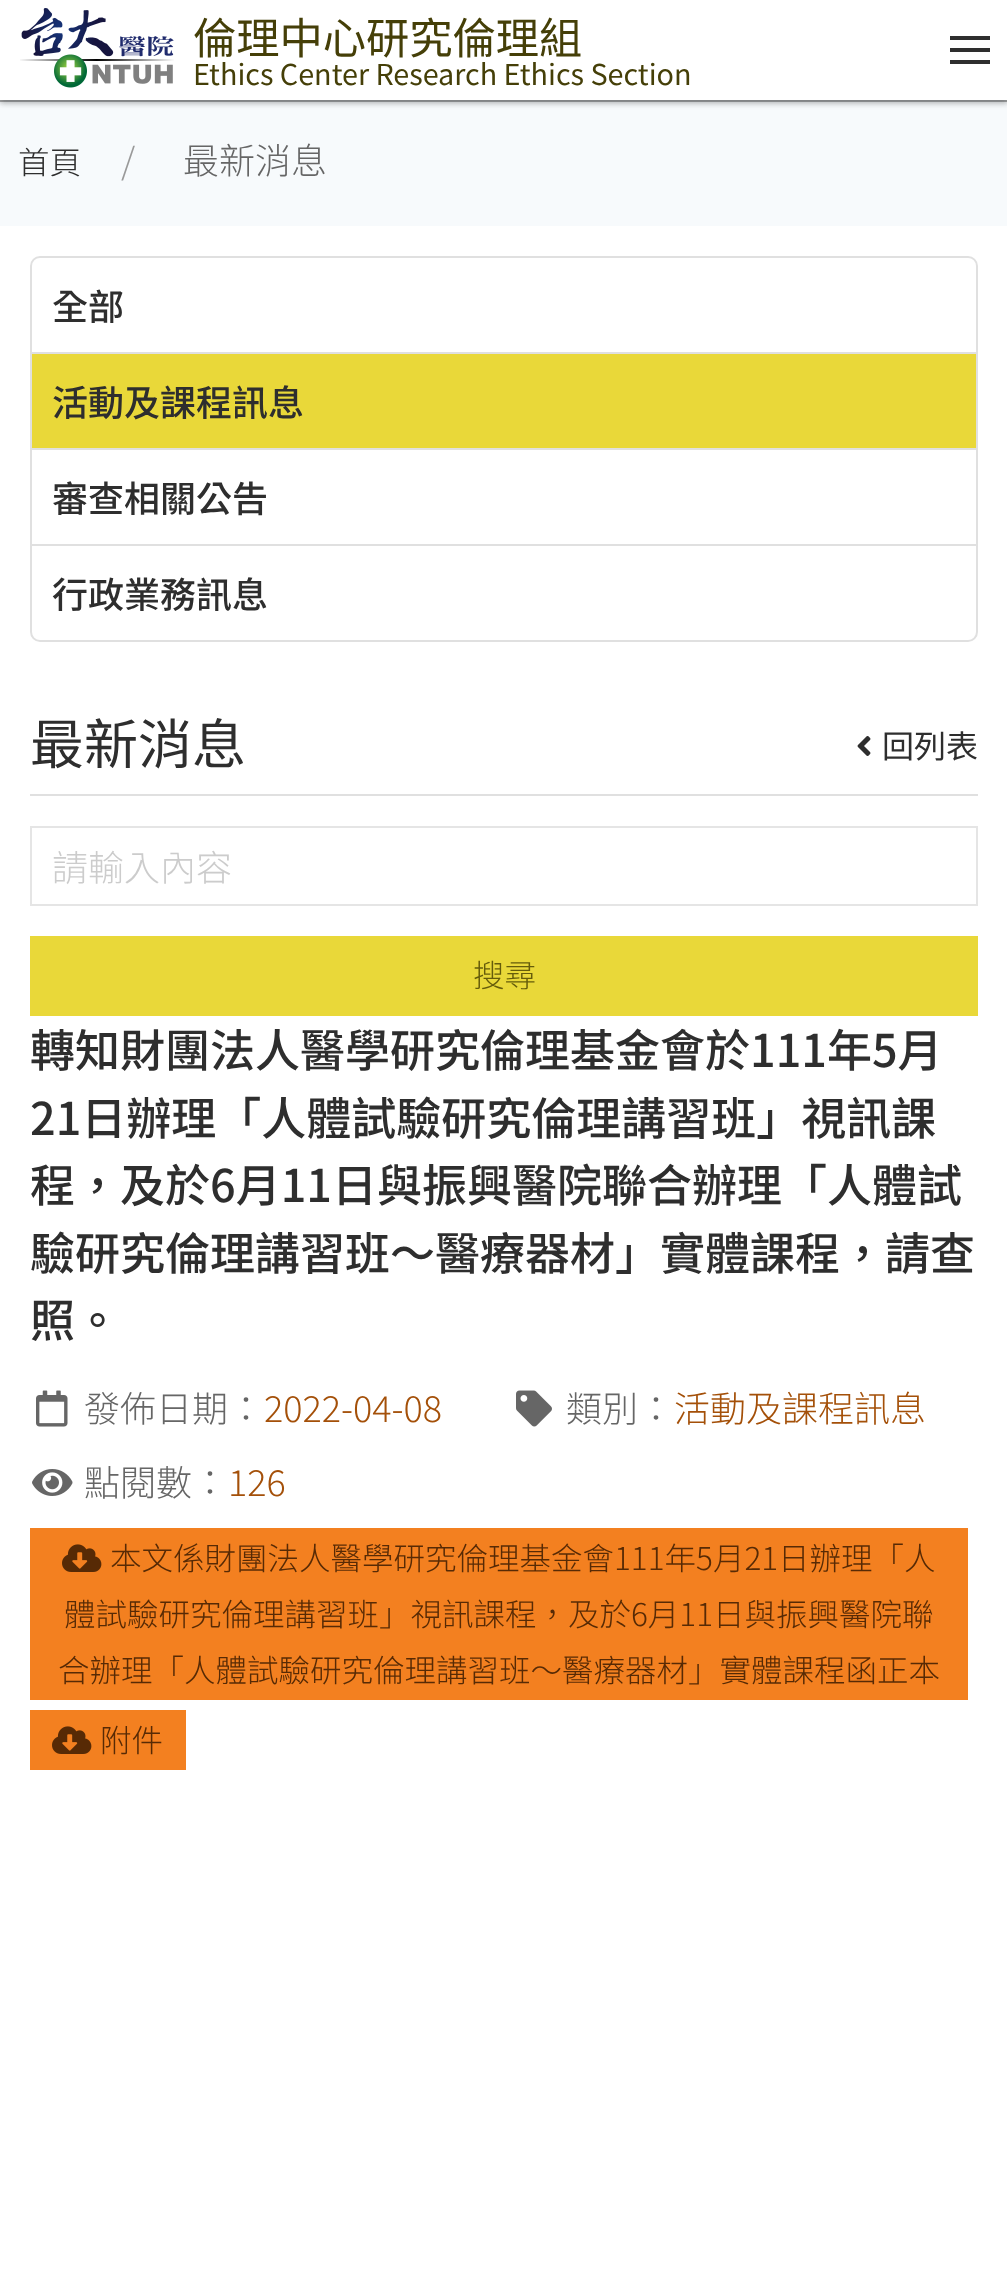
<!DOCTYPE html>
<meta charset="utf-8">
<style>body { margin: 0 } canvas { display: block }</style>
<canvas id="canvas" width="1007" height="2274"></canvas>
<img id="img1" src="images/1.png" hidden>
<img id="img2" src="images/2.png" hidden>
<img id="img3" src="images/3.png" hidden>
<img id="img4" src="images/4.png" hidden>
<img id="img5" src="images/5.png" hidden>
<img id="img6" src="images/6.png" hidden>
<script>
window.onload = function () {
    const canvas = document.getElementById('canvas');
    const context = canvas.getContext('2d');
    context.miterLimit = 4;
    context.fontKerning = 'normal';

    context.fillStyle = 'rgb(247, 250, 252)';
    context.fillRect(0, 0, 1007, 2274);
    context.fillStyle = 'rgba(0, 0, 0, 0.06)';
    context.filter = 'blur(2px)';
    context.beginPath();
    context.rect(0, 2, 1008, 102);
    context.fill();
    context.filter = 'none';
    context.fillStyle = 'rgba(0, 0, 0, 0.1)';
    context.filter = 'blur(3px)';
    context.beginPath();
    context.rect(0, 2, 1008, 102);
    context.fill();
    context.filter = 'none';
    context.fillStyle = 'rgba(0, 0, 0, 0.06)';
    context.filter = 'blur(2px)';
    context.beginPath();
    context.rect(0, 2, 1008, 100);
    context.fill();
    context.filter = 'none';
    context.fillStyle = 'rgba(0, 0, 0, 0.1)';
    context.filter = 'blur(3px)';
    context.beginPath();
    context.rect(0, 2, 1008, 100);
    context.fill();
    context.filter = 'none';
    context.fillStyle = 'rgb(255, 255, 255)';
    context.fillRect(0, 0, 1007, 100);
    context.drawImage(document.getElementById('img1'), 20, 8, 154, 80);
    context.fillStyle = 'rgb(46, 46, 46)';
    context.fillRect(950, 48, 40, 4);
    context.fillRect(950, 36, 40, 4);
    context.fillRect(950, 60, 40, 4);
    context.fillStyle = 'rgba(0, 0, 0, 0.3)';
    context.fillRect(0, 100, 1007, 2);
    context.fillStyle = 'rgb(255, 255, 255)';
    context.fillRect(0, 226, 1007, 2048);
    context.beginPath();
    context.roundRect(31, 257, 946, 96, [9, 9, 0, 0]);
    context.strokeStyle = 'rgb(224, 224, 224)';
    context.lineWidth = 2;
    context.stroke();
    context.strokeRect(31, 353, 946, 96);
    context.fillStyle = 'rgb(233, 216, 57)';
    context.fillRect(32, 354, 944, 94);
    context.strokeRect(31, 449, 946, 96);
    context.fillStyle = 'rgb(255, 255, 255)';
    context.beginPath();
    context.roundRect(31, 545, 946, 96, [0, 0, 9, 9]);
    context.fill();
    context.stroke();
    context.fillStyle = 'rgb(224, 224, 224)';
    context.fillRect(30, 794, 948, 2);
    context.drawImage(document.getElementById('img2'), 857, 736, 14, 20);
    context.strokeStyle = 'rgb(229, 229, 229)';
    context.strokeRect(31, 827, 946, 78);
    context.fillStyle = 'rgb(233, 216, 57)';
    context.fillRect(30, 936, 948, 80);
    context.drawImage(document.getElementById('img3'), 36, 1390, 32, 37);
    context.drawImage(document.getElementById('img4'), 516, 1390, 36, 37);
    context.drawImage(document.getElementById('img5'), 32, 1469, 41, 27);
    context.fillStyle = 'rgb(243, 128, 32)';
    context.fillRect(30, 1528, 938, 172);
    context.drawImage(document.getElementById('img6'), 62, 1544, 40, 28);
    context.fillRect(30, 1710, 156, 60);
    context.drawImage(document.getElementById('img6'), 52, 1726, 40, 28);
    context.font = '43.25px Noto Sans TC';
    context.fillStyle = 'rgb(69, 63, 8)';
    context.fillText('倫理中心研究倫理組', 193, 54);
    context.font = '28.75px Noto Sans TC';
    context.fillText('Ethics Center Research Ethics Section', 193, 85);
    context.font = '300 31.5px Noto Sans TC';
    context.fillStyle = 'rgb(46, 46, 46)';
    context.fillText('首頁', 18, 174);
    context.font = '300 36px Noto Sans TC';
    context.fillStyle = 'rgb(153, 153, 153)';
    context.fillText('/', 121, 174);
    context.fillStyle = 'rgb(102, 102, 102)';
    context.fillText('最新消息', 183, 174);
    context.font = '500 36px Noto Sans TC';
    context.fillStyle = 'rgb(46, 46, 46)';
    context.fillText('全部', 52, 320);
    context.fillText('活動及課程訊息', 52, 416);
    context.fillText('審查相關公告', 52, 512);
    context.fillText('行政業務訊息', 52, 608);
    context.font = '54px Noto Sans TC';
    context.fillText('最新消息', 30, 764);
    context.font = '32px Noto Sans TC';
    context.fillText('回列表', 882, 758);
    context.font = '300 36px Noto Sans TC';
    context.fillStyle = 'rgb(204, 204, 204)';
    context.fillText('請輸入內容', 52, 881);
    context.font = '300 31.5px Noto Sans TC';
    context.fillStyle = 'rgb(101, 92, 11)';
    context.fillText('搜尋', 473, 987);
    context.font = '500 45px Noto Sans TC';
    context.fillStyle = 'rgb(46, 46, 46)';
    context.fillText('轉知財團法人醫學研究倫理基金會於111年5月', 30, 1067);
    context.fillText('21日辦理「人體試驗研究倫理講習班」視訊課', 30, 1135);
    context.fillText('程，及於6月11日與振興醫院聯合辦理「人體試', 30, 1202);
    context.fillText('驗研究倫理講習班～醫療器材」實體課程，請查', 30, 1270);
    context.fillText('照。', 30, 1337);
    context.font = '300 36px Noto Sans TC';
    context.fillStyle = 'rgb(102, 102, 102)';
    context.fillText('發佈日期：', 84, 1422);
    context.fillStyle = 'rgb(164, 80, 9)';
    context.fillText('2022-04-08', 264, 1422);
    context.fillStyle = 'rgb(102, 102, 102)';
    context.fillText('類別：', 566, 1422);
    context.fillStyle = 'rgb(164, 80, 9)';
    context.fillText('活動及課程訊息', 674, 1422);
    context.fillStyle = 'rgb(102, 102, 102)';
    context.fillText('點閱數：', 84, 1496);
    context.fillStyle = 'rgb(164, 80, 9)';
    context.fillText('126', 228, 1496);
    context.font = '300 31.5px Noto Sans TC';
    context.fillStyle = 'rgb(87, 42, 5)';
    context.fillText('本文係財團法人醫學研究倫理基金會111年5月21日辦理「人', 110, 1570);
    context.fillText('體試驗研究倫理講習班」視訊課程，及於6月11日與振興醫院聯', 64, 1626);
    context.fillText('合辦理「人體試驗研究倫理講習班～醫療器材」實體課程函正本', 58, 1682);
    context.fillText('附件', 100, 1752);
};
</script>
